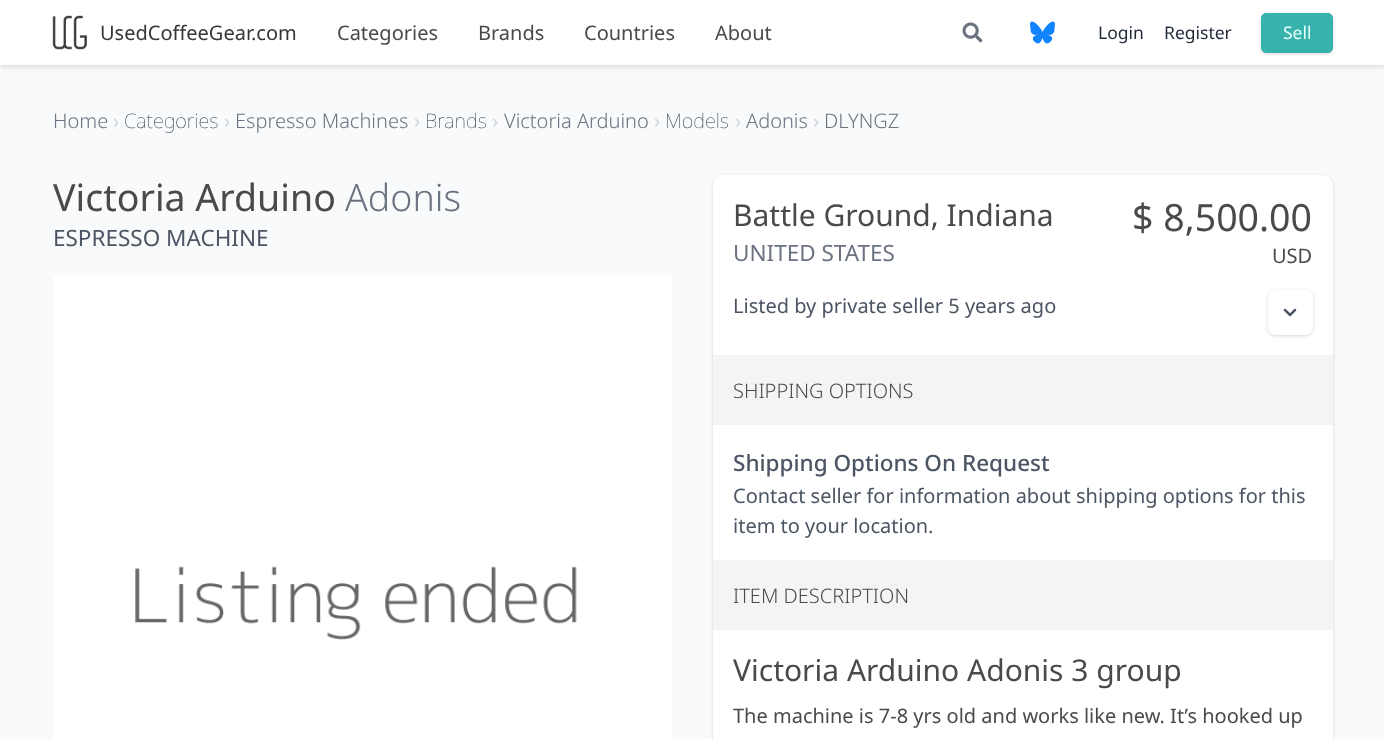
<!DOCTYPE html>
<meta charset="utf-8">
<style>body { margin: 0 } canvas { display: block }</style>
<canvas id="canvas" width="1384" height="739"></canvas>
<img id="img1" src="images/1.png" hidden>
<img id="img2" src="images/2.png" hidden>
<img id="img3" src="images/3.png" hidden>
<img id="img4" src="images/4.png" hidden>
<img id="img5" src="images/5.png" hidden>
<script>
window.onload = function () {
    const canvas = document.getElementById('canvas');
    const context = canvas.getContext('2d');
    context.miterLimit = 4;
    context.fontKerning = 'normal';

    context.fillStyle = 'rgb(249, 250, 251)';
    context.fillRect(0, 0, 1384, 739);
    context.fillStyle = 'rgba(10, 10, 10, 0.1)';
    context.filter = 'blur(2px)';
    context.beginPath();
    context.rect(0, 3, 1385, 65);
    context.fill();
    context.filter = 'none';
    context.fillStyle = 'rgb(255, 255, 255)';
    context.fillRect(0, 0, 1384, 65);
    context.drawImage(document.getElementById('img1'), 52, 15, 35, 35);
    context.drawImage(document.getElementById('img2'), 962, 22, 21, 21);
    context.drawImage(document.getElementById('img3'), 1030, 21, 25, 23);
    context.fillStyle = 'rgba(0, 0, 0, 0.06)';
    context.filter = 'blur(1px)';
    context.beginPath();
    context.roundRect(1261, 14, 72, 40, 5);
    context.fill();
    context.filter = 'none';
    context.fillStyle = 'rgba(0, 0, 0, 0.1)';
    context.filter = 'blur(2px)';
    context.beginPath();
    context.roundRect(1261, 14, 72, 40, 5);
    context.fill();
    context.filter = 'none';
    context.fillStyle = 'rgb(56, 178, 172)';
    context.beginPath();
    context.roundRect(1261.5, 13.5, 71, 39, 4.5);
    context.fill();
    context.strokeStyle = 'rgb(56, 178, 172)';
    context.stroke();
    context.drawImage(document.getElementById('img4'), 53, 275, 619, 464);
    context.fillStyle = 'rgba(0, 0, 0, 0.06)';
    context.filter = 'blur(1px)';
    context.beginPath();
    context.roundRect(713, 176, 620, 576, 10);
    context.fill();
    context.filter = 'none';
    context.fillStyle = 'rgba(0, 0, 0, 0.1)';
    context.filter = 'blur(2px)';
    context.beginPath();
    context.roundRect(713, 176, 620, 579, 10);
    context.fill();
    context.filter = 'none';
    context.fillStyle = 'rgb(255, 255, 255)';
    context.beginPath();
    context.roundRect(713, 175, 620, 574, 10);
    context.fill();
    context.fillStyle = 'rgba(0, 0, 0, 0.06)';
    context.filter = 'blur(1px)';
    context.beginPath();
    context.roundRect(1268, 291, 45, 45, 8);
    context.fill();
    context.filter = 'none';
    context.fillStyle = 'rgba(0, 0, 0, 0.1)';
    context.filter = 'blur(2px)';
    context.beginPath();
    context.roundRect(1268, 291, 45, 45, 8);
    context.fill();
    context.filter = 'none';
    context.fillStyle = 'rgb(255, 255, 255)';
    context.beginPath();
    context.roundRect(1268, 290, 45, 45, 8);
    context.fill();
    context.drawImage(document.getElementById('img5'), 1283, 308, 14, 9);
    context.fillStyle = 'rgb(243, 244, 246)';
    context.fillRect(713, 355, 620, 70);
    context.fillRect(713, 560, 620, 70);
    context.font = '20px Noto Sans';
    context.fillStyle = 'rgb(54, 54, 54)';
    context.fillText('UsedCoffeeGear.com', 100, 40);
    context.fillStyle = 'rgb(74, 74, 74)';
    context.fillText('Categories', 337, 40);
    context.fillText('Brands', 478, 40);
    context.fillText('Countries', 584, 40);
    context.fillText('About', 715, 40);
    context.font = '17.5px Noto Sans';
    context.fillStyle = 'rgb(31, 41, 55)';
    context.fillText('Login', 1098, 39);
    context.fillText('Register', 1164, 39);
    context.fillStyle = 'rgb(230, 255, 250)';
    context.fillText('Sell', 1283, 39);
    context.font = '300 20px Noto Sans';
    context.fillStyle = 'rgb(107, 114, 128)';
    context.fillText('Home', 53, 128);
    context.font = '20px Noto Sans';
    context.fillStyle = 'rgb(209, 213, 219)';
    context.fillText('›', 113, 128);
    context.font = '100 20px Noto Sans';
    context.fillStyle = 'rgb(31, 41, 55)';
    context.fillText('Categories', 124, 128);
    context.font = '20px Noto Sans';
    context.fillStyle = 'rgb(209, 213, 219)';
    context.fillText('›', 224, 128);
    context.font = '300 20px Noto Sans';
    context.fillStyle = 'rgb(107, 114, 128)';
    context.fillText('Espresso Machines', 235, 128);
    context.font = '20px Noto Sans';
    context.fillStyle = 'rgb(209, 213, 219)';
    context.fillText('›', 414, 128);
    context.font = '100 20px Noto Sans';
    context.fillStyle = 'rgb(31, 41, 55)';
    context.fillText('Brands', 425, 128);
    context.font = '20px Noto Sans';
    context.fillStyle = 'rgb(209, 213, 219)';
    context.fillText('›', 492, 128);
    context.font = '300 20px Noto Sans';
    context.fillStyle = 'rgb(107, 114, 128)';
    context.fillText('Victoria Arduino', 504, 128);
    context.font = '20px Noto Sans';
    context.fillStyle = 'rgb(209, 213, 219)';
    context.fillText('›', 654, 128);
    context.font = '100 20px Noto Sans';
    context.fillStyle = 'rgb(31, 41, 55)';
    context.fillText('Models', 665, 128);
    context.font = '20px Noto Sans';
    context.fillStyle = 'rgb(209, 213, 219)';
    context.fillText('›', 735, 128);
    context.font = '300 20px Noto Sans';
    context.fillStyle = 'rgb(107, 114, 128)';
    context.fillText('Adonis', 746, 128);
    context.font = '20px Noto Sans';
    context.fillStyle = 'rgb(209, 213, 219)';
    context.fillText('›', 813, 128);
    context.font = '300 20px Noto Sans';
    context.fillStyle = 'rgb(107, 114, 128)';
    context.fillText('DLYNGZ', 824, 128);
    context.font = '37.5px Noto Sans';
    context.fillStyle = 'rgb(74, 74, 74)';
    context.fillText('Victoria Arduino', 53, 211);
    context.font = '300 37.5px Noto Sans';
    context.fillStyle = 'rgb(107, 114, 128)';
    context.fillText('Adonis', 345, 211);
    context.font = '22.5px Noto Sans';
    context.fillStyle = 'rgb(75, 85, 99)';
    context.fillText('ESPRESSO MACHINE', 53, 246);
    context.font = '30px Noto Sans';
    context.fillStyle = 'rgb(74, 74, 74)';
    context.fillText('Battle Ground, Indiana', 733, 226);
    context.font = '22.5px Noto Sans';
    context.fillStyle = 'rgb(107, 114, 128)';
    context.fillText('UNITED STATES', 733, 261);
    context.font = '37.5px Noto Sans';
    context.fillStyle = 'rgb(74, 74, 74)';
    context.fillText('$ 8,500.00', 1132, 231);
    context.font = '20px Noto Sans';
    context.fillText('USD', 1272, 263);
    context.fillStyle = 'rgb(75, 85, 99)';
    context.fillText('Listed by private seller 5 years ago', 733, 313);
    context.font = '300 20px Noto Sans';
    context.fillStyle = 'rgb(74, 74, 74)';
    context.fillText('SHIPPING OPTIONS', 733, 398);
    context.font = '500 22.5px Noto Sans';
    context.fillStyle = 'rgb(75, 85, 99)';
    context.fillText('Shipping Options On Request', 733, 471);
    context.font = '20px Noto Sans';
    context.fillText('Contact seller for information about shipping options for this', 733, 503);
    context.fillText('item to your location.', 733, 533);
    context.font = '300 20px Noto Sans';
    context.fillStyle = 'rgb(74, 74, 74)';
    context.fillText('ITEM DESCRIPTION', 733, 603);
    context.font = '30px Noto Sans';
    context.fillText('Victoria Arduino Adonis 3 group', 733, 681);
    context.font = '20px Noto Sans';
    context.fillText('The machine is 7-8 yrs old and works like new. It’s hooked up', 733, 723);
};
</script>
